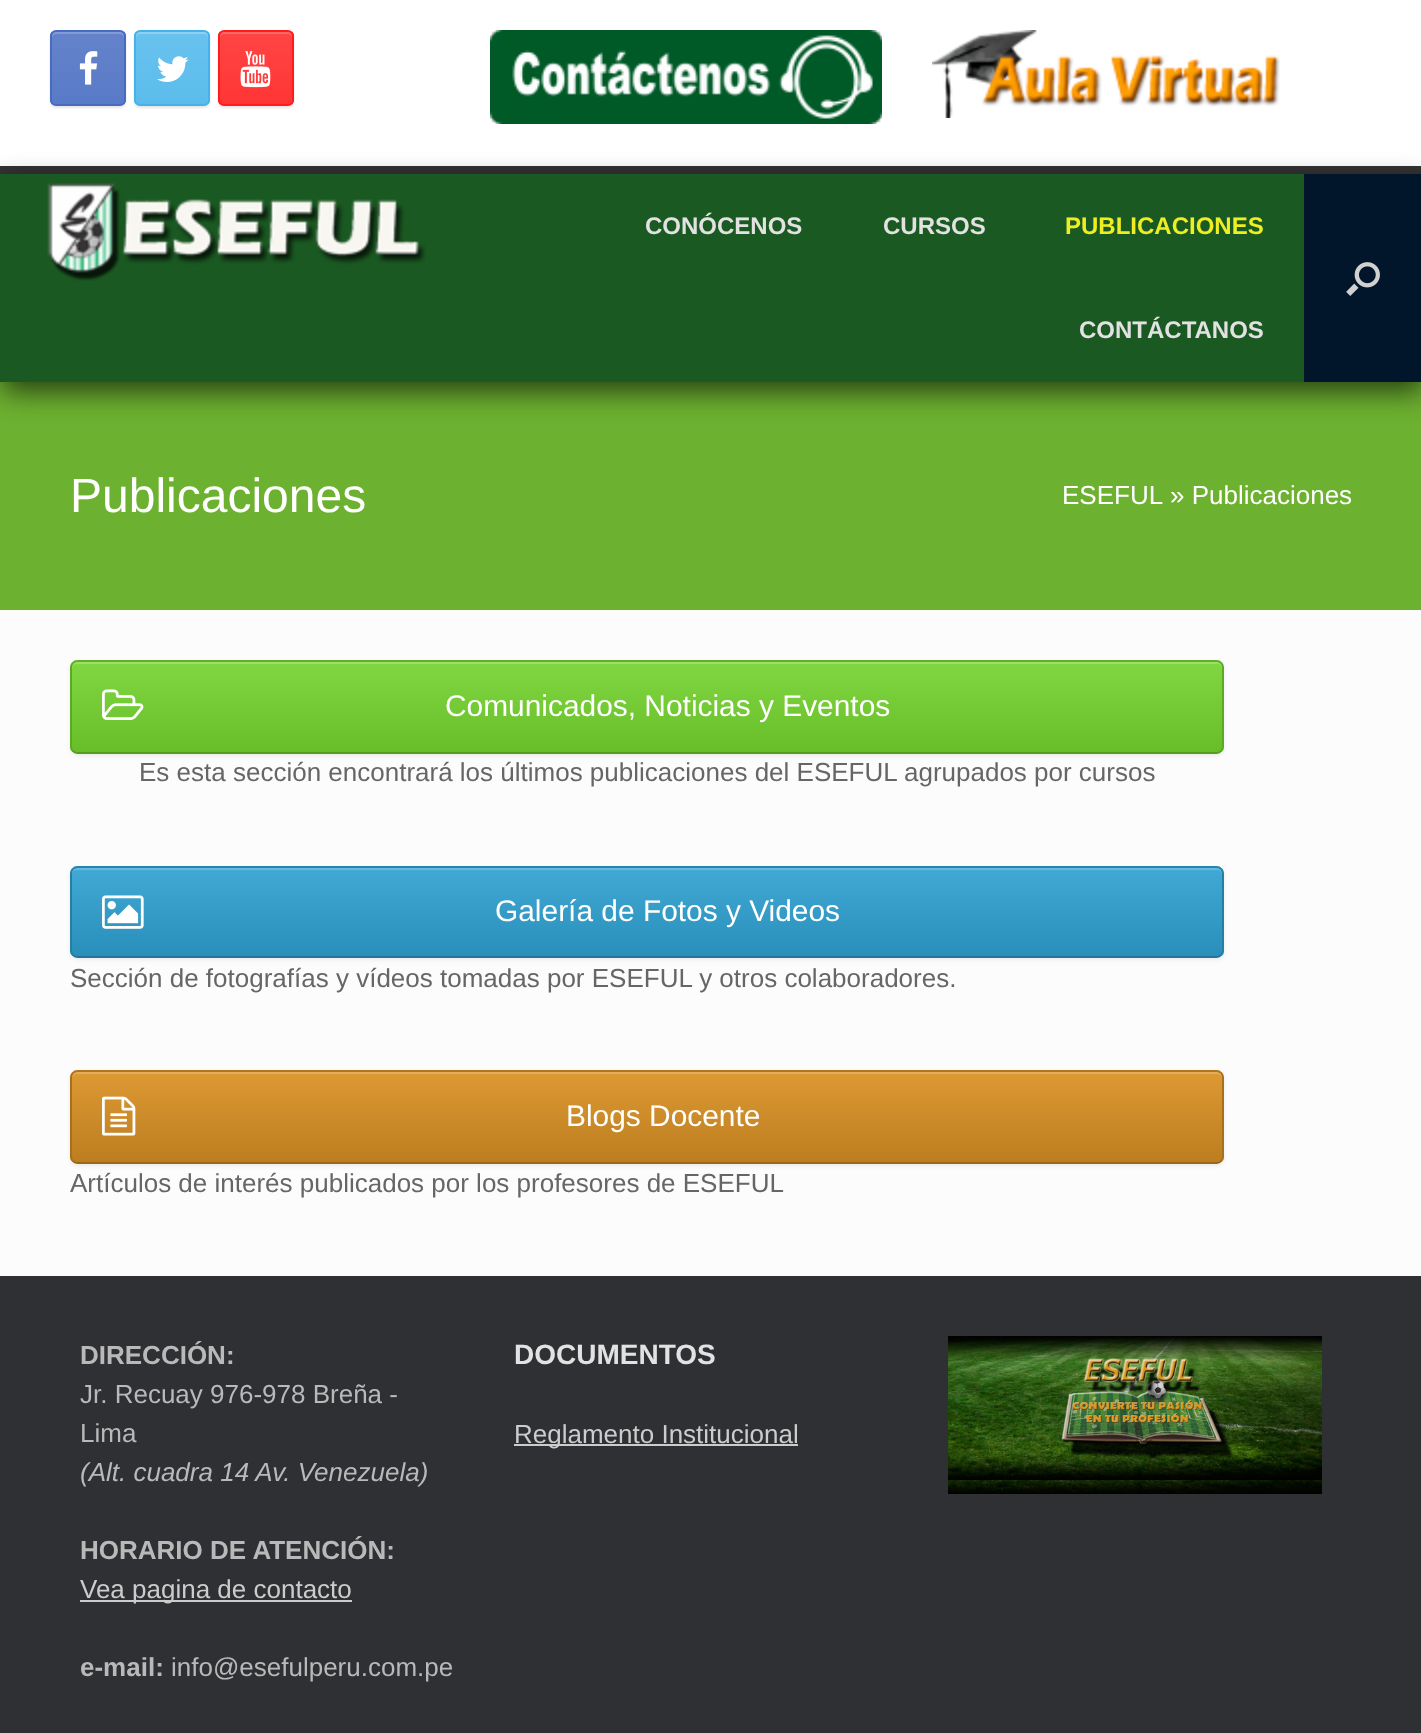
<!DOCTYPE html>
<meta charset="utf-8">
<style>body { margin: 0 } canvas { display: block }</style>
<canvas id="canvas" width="1421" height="1733"></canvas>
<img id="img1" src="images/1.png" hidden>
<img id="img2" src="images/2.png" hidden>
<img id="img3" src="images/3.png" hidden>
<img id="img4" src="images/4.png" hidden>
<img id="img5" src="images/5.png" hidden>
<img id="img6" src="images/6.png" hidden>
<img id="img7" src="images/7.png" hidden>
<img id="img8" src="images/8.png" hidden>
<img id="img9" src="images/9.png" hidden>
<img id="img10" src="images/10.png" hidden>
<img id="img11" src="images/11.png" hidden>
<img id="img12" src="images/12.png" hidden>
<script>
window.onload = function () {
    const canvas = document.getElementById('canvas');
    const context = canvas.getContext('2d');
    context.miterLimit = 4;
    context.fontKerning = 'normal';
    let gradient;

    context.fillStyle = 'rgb(255, 255, 255)';
    context.fillRect(0, 0, 1421, 1733);
    context.fillStyle = 'rgb(51, 51, 51)';
    context.fillRect(0, 166, 1421, 8);
    context.fillStyle = 'rgba(0, 0, 0, 0.1)';
    context.filter = 'blur(1px)';
    context.beginPath();
    context.roundRect(50, 32, 76, 76, 6);
    context.fill();
    context.filter = 'none';
    context.save();
    context.beginPath();
    context.roundRect(50, 30, 76, 76, 6);
    context.clip();
    gradient = context.createLinearGradient(52, 104, 52, 32);
    gradient.addColorStop(0, 'rgb(89, 122, 199)');
    gradient.addColorStop(1, 'rgb(100, 131, 203)');
    context.fillStyle = gradient;
    context.fillRect(50, 32, 76, 72);
    context.restore();
    context.fillStyle = 'rgb(131, 156, 213)';
    context.beginPath();
    context.moveTo(56, 34);
    context.lineTo(120, 34);
    context.bezierCurveTo(122, 34, 124, 36, 124, 38);
    context.bezierCurveTo(124, 29, 117, 32, 109, 32);
    context.lineTo(67, 32);
    context.bezierCurveTo(59, 32, 52, 29, 52, 38);
    context.bezierCurveTo(52, 36, 54, 34, 56, 34);
    context.closePath();
    context.fill();
    context.beginPath();
    context.roundRect(51, 31, 74, 74, 5);
    context.strokeStyle = 'rgb(70, 107, 193)';
    context.lineWidth = 2;
    context.stroke();
    context.drawImage(document.getElementById('img1'), 79, 51, 19, 34);
    context.fillStyle = 'rgba(0, 0, 0, 0.1)';
    context.filter = 'blur(1px)';
    context.beginPath();
    context.roundRect(134, 32, 76, 76, 6);
    context.fill();
    context.filter = 'none';
    context.save();
    context.beginPath();
    context.roundRect(134, 30, 76, 76, 6);
    context.clip();
    gradient = context.createLinearGradient(136, 104, 136, 32);
    gradient.addColorStop(0, 'rgb(91, 188, 236)');
    gradient.addColorStop(1, 'rgb(105, 194, 238)');
    context.fillStyle = gradient;
    context.fillRect(134, 32, 76, 72);
    context.restore();
    context.fillStyle = 'rgb(142, 209, 242)';
    context.beginPath();
    context.moveTo(140, 34);
    context.lineTo(204, 34);
    context.bezierCurveTo(206, 34, 208, 36, 208, 38);
    context.bezierCurveTo(208, 29, 201, 32, 193, 32);
    context.lineTo(151, 32);
    context.bezierCurveTo(143, 32, 136, 29, 136, 38);
    context.bezierCurveTo(136, 36, 138, 34, 140, 34);
    context.closePath();
    context.fill();
    context.beginPath();
    context.roundRect(135, 31, 74, 74, 5);
    context.strokeStyle = 'rgb(68, 179, 233)';
    context.stroke();
    context.drawImage(document.getElementById('img2'), 157, 56, 32, 26);
    context.fillStyle = 'rgba(0, 0, 0, 0.1)';
    context.filter = 'blur(1px)';
    context.beginPath();
    context.roundRect(218, 32, 76, 76, 6);
    context.fill();
    context.filter = 'none';
    context.save();
    context.beginPath();
    context.roundRect(218, 30, 76, 76, 6);
    context.clip();
    gradient = context.createLinearGradient(220, 104, 220, 32);
    gradient.addColorStop(0, 'rgb(255, 54, 53)');
    gradient.addColorStop(1, 'rgb(255, 69, 68)');
    context.fillStyle = gradient;
    context.fillRect(218, 32, 76, 72);
    context.restore();
    context.fillStyle = 'rgb(255, 106, 105)';
    context.beginPath();
    context.moveTo(224, 34);
    context.lineTo(288, 34);
    context.bezierCurveTo(290, 34, 292, 36, 292, 38);
    context.bezierCurveTo(292, 29, 285, 32, 277, 32);
    context.lineTo(235, 32);
    context.bezierCurveTo(227, 32, 220, 29, 220, 38);
    context.bezierCurveTo(220, 36, 222, 34, 224, 34);
    context.closePath();
    context.fill();
    context.beginPath();
    context.roundRect(219, 31, 74, 74, 5);
    context.strokeStyle = 'rgb(255, 29, 27)';
    context.stroke();
    context.drawImage(document.getElementById('img3'), 240, 51, 31, 37);
    context.drawImage(document.getElementById('img4'), 490, 30, 392, 94);
    context.drawImage(document.getElementById('img5'), 932, 30, 348, 88);
    context.fillStyle = 'rgb(109, 177, 48)';
    context.fillRect(0, 382, 1421, 228);
    context.fillStyle = 'rgba(0, 0, 0, 0.62)';
    context.filter = 'blur(14px)';
    context.beginPath();
    context.rect(2, 184, 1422, 208);
    context.fill();
    context.filter = 'none';
    context.fillStyle = 'rgb(27, 89, 34)';
    context.fillRect(0, 174, 1304, 208);
    context.drawImage(document.getElementById('img6'), 47, 183, 379, 98);
    context.fillStyle = 'rgb(2, 22, 43)';
    context.fillRect(1304, 174, 117, 208);
    context.drawImage(document.getElementById('img7'), 1346, 262, 34, 34);
    context.fillStyle = 'rgb(252, 252, 252)';
    context.fillRect(0, 610, 1421, 666);
    context.fillStyle = 'rgba(0, 0, 0, 0.07)';
    context.filter = 'blur(2px)';
    context.beginPath();
    context.roundRect(70, 662, 1154, 94, 8);
    context.fill();
    context.filter = 'none';
    context.save();
    context.beginPath();
    context.roundRect(70, 660, 1154, 94, 8);
    context.clip();
    gradient = context.createLinearGradient(72, 752, 72, 662);
    gradient.addColorStop(0, 'rgb(103, 190, 40)');
    gradient.addColorStop(1, 'rgb(129, 215, 66)');
    context.fillStyle = gradient;
    context.fillRect(70, 662, 1154, 90);
    context.restore();
    context.fillStyle = 'rgb(154, 223, 104)';
    context.beginPath();
    context.moveTo(77, 664);
    context.lineTo(1217, 664);
    context.bezierCurveTo(1220, 664, 1222, 666, 1222, 669);
    context.lineTo(1222, 667);
    context.bezierCurveTo(1222, 664, 1220, 662, 1217, 662);
    context.lineTo(77, 662);
    context.bezierCurveTo(74, 662, 72, 664, 72, 667);
    context.lineTo(72, 669);
    context.bezierCurveTo(72, 666, 74, 664, 77, 664);
    context.closePath();
    context.fill();
    context.beginPath();
    context.moveTo(73, 663);
    context.bezierCurveTo(74, 661.5, 76, 661, 77.5, 661);
    context.lineTo(1216.5, 661);
    context.bezierCurveTo(1218, 661, 1220, 661.5, 1221, 663);
    context.strokeStyle = 'rgb(97, 177, 38)';
    context.stroke();
    context.beginPath();
    context.moveTo(1221, 663);
    context.bezierCurveTo(1222.5, 664, 1223, 666, 1223, 667.5);
    context.lineTo(1223, 746.5);
    context.bezierCurveTo(1223, 748, 1222.5, 750, 1221, 751);
    context.strokeStyle = 'rgb(92, 169, 36)';
    context.stroke();
    context.beginPath();
    context.moveTo(1221, 751);
    context.bezierCurveTo(1220, 752.5, 1218, 753, 1216.5, 753);
    context.lineTo(77.5, 753);
    context.bezierCurveTo(76, 753, 74, 752.5, 73, 751);
    context.strokeStyle = 'rgb(85, 156, 33)';
    context.stroke();
    context.beginPath();
    context.moveTo(73, 751);
    context.bezierCurveTo(71.5, 750, 71, 748, 71, 746.5);
    context.lineTo(71, 667.5);
    context.bezierCurveTo(71, 666, 71.5, 664, 73, 663);
    context.strokeStyle = 'rgb(92, 169, 36)';
    context.stroke();
    context.drawImage(document.getElementById('img8'), 102, 689, 42, 31);
    context.fillStyle = 'rgba(0, 0, 0, 0.07)';
    context.filter = 'blur(2px)';
    context.beginPath();
    context.roundRect(70, 868, 1154, 92, 8);
    context.fill();
    context.filter = 'none';
    context.save();
    context.beginPath();
    context.roundRect(70, 866, 1154, 92, 8);
    context.clip();
    gradient = context.createLinearGradient(72, 956, 72, 868);
    gradient.addColorStop(0, 'rgb(41, 143, 186)');
    gradient.addColorStop(1, 'rgb(65, 169, 213)');
    context.fillStyle = gradient;
    context.fillRect(70, 868, 1154, 88);
    context.restore();
    context.fillStyle = 'rgb(103, 186, 221)';
    context.beginPath();
    context.moveTo(77, 870);
    context.lineTo(1217, 870);
    context.bezierCurveTo(1220, 870, 1222, 872, 1222, 875);
    context.lineTo(1222, 873);
    context.bezierCurveTo(1222, 870, 1220, 868, 1217, 868);
    context.lineTo(77, 868);
    context.bezierCurveTo(74, 868, 72, 870, 72, 873);
    context.lineTo(72, 875);
    context.bezierCurveTo(72, 872, 74, 870, 77, 870);
    context.closePath();
    context.fill();
    context.beginPath();
    context.moveTo(73, 869);
    context.bezierCurveTo(74, 867.5, 76, 867, 77.5, 867);
    context.lineTo(1216.5, 867);
    context.bezierCurveTo(1218, 867, 1220, 867.5, 1221, 869);
    context.strokeStyle = 'rgb(38, 133, 173)';
    context.stroke();
    context.beginPath();
    context.moveTo(1221, 869);
    context.bezierCurveTo(1222.5, 870, 1223, 872, 1223, 873.5);
    context.lineTo(1223, 950.5);
    context.bezierCurveTo(1223, 952, 1222.5, 954, 1221, 955);
    context.strokeStyle = 'rgb(36, 127, 165)';
    context.stroke();
    context.beginPath();
    context.moveTo(1221, 955);
    context.bezierCurveTo(1220, 956.5, 1218, 957, 1216.5, 957);
    context.lineTo(77.5, 957);
    context.bezierCurveTo(76, 957, 74, 956.5, 73, 955);
    context.strokeStyle = 'rgb(34, 117, 152)';
    context.stroke();
    context.beginPath();
    context.moveTo(73, 955);
    context.bezierCurveTo(71.5, 954, 71, 952, 71, 950.5);
    context.lineTo(71, 873.5);
    context.bezierCurveTo(71, 872, 71.5, 870, 73, 869);
    context.strokeStyle = 'rgb(36, 127, 165)';
    context.stroke();
    context.drawImage(document.getElementById('img9'), 102, 895, 42, 34);
    context.fillStyle = 'rgba(0, 0, 0, 0.07)';
    context.filter = 'blur(2px)';
    context.beginPath();
    context.roundRect(70, 1072, 1154, 94, 8);
    context.fill();
    context.filter = 'none';
    context.save();
    context.beginPath();
    context.roundRect(70, 1070, 1154, 94, 8);
    context.clip();
    gradient = context.createLinearGradient(72, 1162, 72, 1072);
    gradient.addColorStop(0, 'rgb(189, 126, 32)');
    gradient.addColorStop(1, 'rgb(221, 153, 51)');
    context.fillStyle = gradient;
    context.fillRect(70, 1072, 1154, 90);
    context.restore();
    context.fillStyle = 'rgb(227, 173, 92)';
    context.beginPath();
    context.moveTo(77, 1074);
    context.lineTo(1217, 1074);
    context.bezierCurveTo(1220, 1074, 1222, 1076, 1222, 1079);
    context.lineTo(1222, 1077);
    context.bezierCurveTo(1222, 1074, 1220, 1072, 1217, 1072);
    context.lineTo(77, 1072);
    context.bezierCurveTo(74, 1072, 72, 1074, 72, 1077);
    context.lineTo(72, 1079);
    context.bezierCurveTo(72, 1076, 74, 1074, 77, 1074);
    context.closePath();
    context.fill();
    context.beginPath();
    context.moveTo(73, 1073);
    context.bezierCurveTo(74, 1071.5, 76, 1071, 77.5, 1071);
    context.lineTo(1216.5, 1071);
    context.bezierCurveTo(1218, 1071, 1220, 1071.5, 1221, 1073);
    context.strokeStyle = 'rgb(176, 118, 29)';
    context.stroke();
    context.beginPath();
    context.moveTo(1221, 1073);
    context.bezierCurveTo(1222.5, 1074, 1223, 1076, 1223, 1077.5);
    context.lineTo(1223, 1156.5);
    context.bezierCurveTo(1223, 1158, 1222.5, 1160, 1221, 1161);
    context.strokeStyle = 'rgb(168, 112, 28)';
    context.stroke();
    context.beginPath();
    context.moveTo(1221, 1161);
    context.bezierCurveTo(1220, 1162.5, 1218, 1163, 1216.5, 1163);
    context.lineTo(77.5, 1163);
    context.bezierCurveTo(76, 1163, 74, 1162.5, 73, 1161);
    context.strokeStyle = 'rgb(154, 103, 26)';
    context.stroke();
    context.beginPath();
    context.moveTo(73, 1161);
    context.bezierCurveTo(71.5, 1160, 71, 1158, 71, 1156.5);
    context.lineTo(71, 1077.5);
    context.bezierCurveTo(71, 1076, 71.5, 1074, 73, 1073);
    context.strokeStyle = 'rgb(168, 112, 28)';
    context.stroke();
    context.drawImage(document.getElementById('img10'), 102, 1096, 34, 40);
    context.fillStyle = 'rgb(47, 48, 51)';
    context.fillRect(0, 1276, 1421, 457);
    context.fillStyle = 'rgb(204, 204, 204)';
    context.fillRect(80, 1600, 272, 2);
    context.fillRect(514, 1444, 284, 2);
    context.drawImage(document.getElementById('img11'), 948, 1336, 374, 158);
    context.drawImage(document.getElementById('img12'), 948, 1337, 374, 143);
    context.font = 'bold 24px Liberation Sans';
    context.fillStyle = 'rgb(226, 226, 226)';
    context.fillText('CONÓCENOS', 645, 234);
    context.fillText('CURSOS', 883, 234);
    context.fillStyle = 'rgb(238, 238, 34)';
    context.fillText('PUBLICACIONES', 1065, 234);
    context.fillStyle = 'rgb(226, 226, 226)';
    context.fillText('CONTÁCTANOS', 1079, 338);
    context.font = '48px Liberation Sans';
    context.fillStyle = 'rgb(255, 255, 255)';
    context.fillText('Publicaciones', 70, 512);
    context.font = '26px Liberation Sans';
    context.fillText('ESEFUL', 1062, 504);
    context.fillText('» Publicaciones', 1170, 504);
    context.font = '29.9px Liberation Sans';
    context.fillText('Comunicados, Noticias y Eventos', 445, 716);
    context.font = '26px Liberation Sans';
    context.fillStyle = 'rgb(102, 102, 102)';
    context.fillText('Es esta sección encontrará los últimos publicaciones del ESEFUL agrupados por cursos', 139, 781);
    context.font = '29.9px Liberation Sans';
    context.fillStyle = 'rgb(255, 255, 255)';
    context.fillText('Galería de Fotos y Videos', 495, 921);
    context.font = '26px Liberation Sans';
    context.fillStyle = 'rgb(102, 102, 102)';
    context.fillText('Sección de fotografías y vídeos tomadas por ESEFUL y otros colaboradores.', 70, 987);
    context.font = '29.9px Liberation Sans';
    context.fillStyle = 'rgb(255, 255, 255)';
    context.fillText('Blogs Docente', 566, 1126);
    context.font = '26px Liberation Sans';
    context.fillStyle = 'rgb(102, 102, 102)';
    context.fillText('Artículos de interés publicados por los profesores de ESEFUL', 70, 1192);
    context.font = 'bold 26px Liberation Sans';
    context.fillStyle = 'rgb(185, 185, 185)';
    context.fillText('DIRECCIÓN:', 80, 1364);
    context.font = '26px Liberation Sans';
    context.fillText('Jr. Recuay 976-978 Breña -', 80, 1403);
    context.fillText('Lima', 80, 1442);
    context.font = 'italic 26px Liberation Sans';
    context.fillText('(Alt. cuadra 14 Av. Venezuela)', 80, 1481);
    context.font = 'bold 26px Liberation Sans';
    context.fillText('HORARIO DE ATENCIÓN:', 80, 1559);
    context.font = '26px Liberation Sans';
    context.fillStyle = 'rgb(204, 204, 204)';
    context.fillText('Vea pagina de contacto', 80, 1598);
    context.font = 'bold 26px Liberation Sans';
    context.fillStyle = 'rgb(185, 185, 185)';
    context.fillText('e-mail:', 80, 1676);
    context.font = '26px Liberation Sans';
    context.fillText('info@esefulperu.com.pe', 171, 1676);
    context.font = 'bold 28px Liberation Sans';
    context.fillStyle = 'rgb(226, 226, 226)';
    context.fillText('DOCUMENTOS', 514, 1364);
    context.font = '26px Liberation Sans';
    context.fillStyle = 'rgb(204, 204, 204)';
    context.fillText('Reglamento Institucional', 514, 1443);
};
</script>
